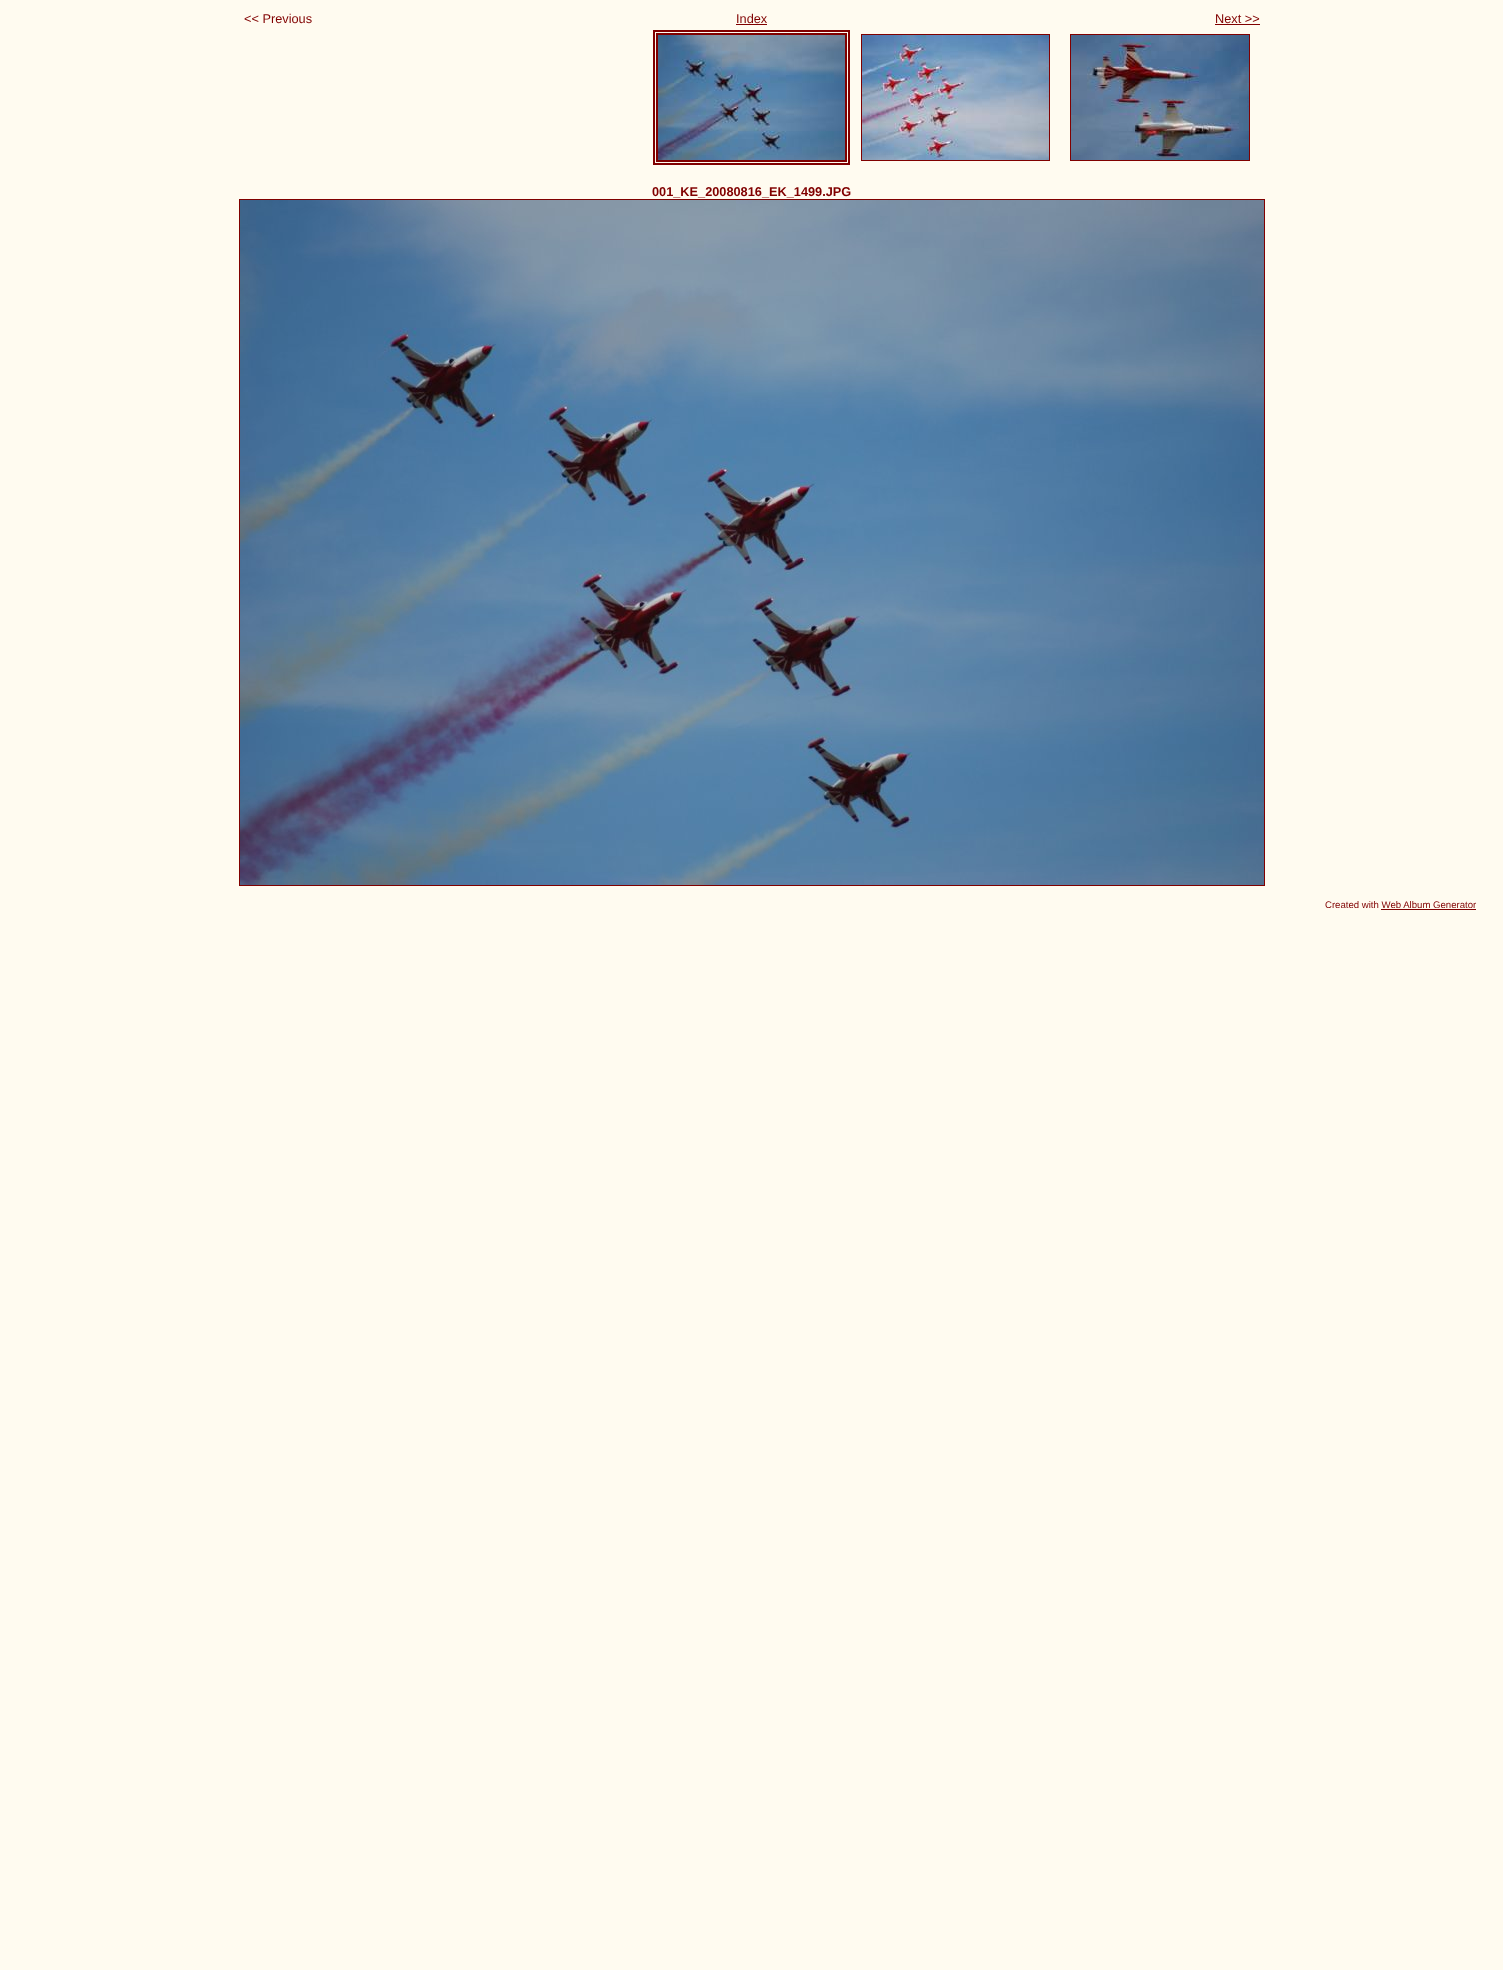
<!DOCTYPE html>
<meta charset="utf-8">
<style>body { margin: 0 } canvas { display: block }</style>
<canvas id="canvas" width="1503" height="1970"></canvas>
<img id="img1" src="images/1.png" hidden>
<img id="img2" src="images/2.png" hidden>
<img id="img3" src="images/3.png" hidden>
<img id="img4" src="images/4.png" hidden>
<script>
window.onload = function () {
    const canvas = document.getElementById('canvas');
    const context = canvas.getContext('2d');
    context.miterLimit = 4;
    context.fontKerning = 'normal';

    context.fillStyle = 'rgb(255, 251, 240)';
    context.fillRect(0, 0, 1503, 1970);
    context.fillStyle = 'rgb(128, 0, 0)';
    context.fillRect(736, 24, 31, 1);
    context.fillRect(1215, 24, 45, 1);
    context.strokeStyle = 'rgb(128, 0, 0)';
    context.lineWidth = 2;
    context.strokeRect(654, 31, 195, 133);
    context.strokeRect(657, 34, 189, 127);
    context.drawImage(document.getElementById('img1'), 658, 35, 187, 125);
    context.lineWidth = 1;
    context.strokeRect(861.5, 34.5, 188, 126);
    context.drawImage(document.getElementById('img2'), 862, 35, 187, 125);
    context.strokeRect(1070.5, 34.5, 179, 126);
    context.drawImage(document.getElementById('img3'), 1071, 35, 178, 125);
    context.strokeRect(239.5, 199.5, 1025, 686);
    context.drawImage(document.getElementById('img4'), 240, 200, 1024, 685);
    context.fillRect(1381, 909, 95, 1);
    context.font = '12.75px Liberation Sans';
    context.fillText('<< Previous', 244, 23);
    context.fillText('Index', 736, 23);
    context.fillText('Next >>', 1215, 23);
    context.font = 'bold 12.75px Liberation Sans';
    context.fillText('001_KE_20080816_EK_1499.JPG', 652, 196);
    context.font = '9.6px Liberation Sans';
    context.fillText('Created with Web Album Generator', 1325, 908);
};
</script>
